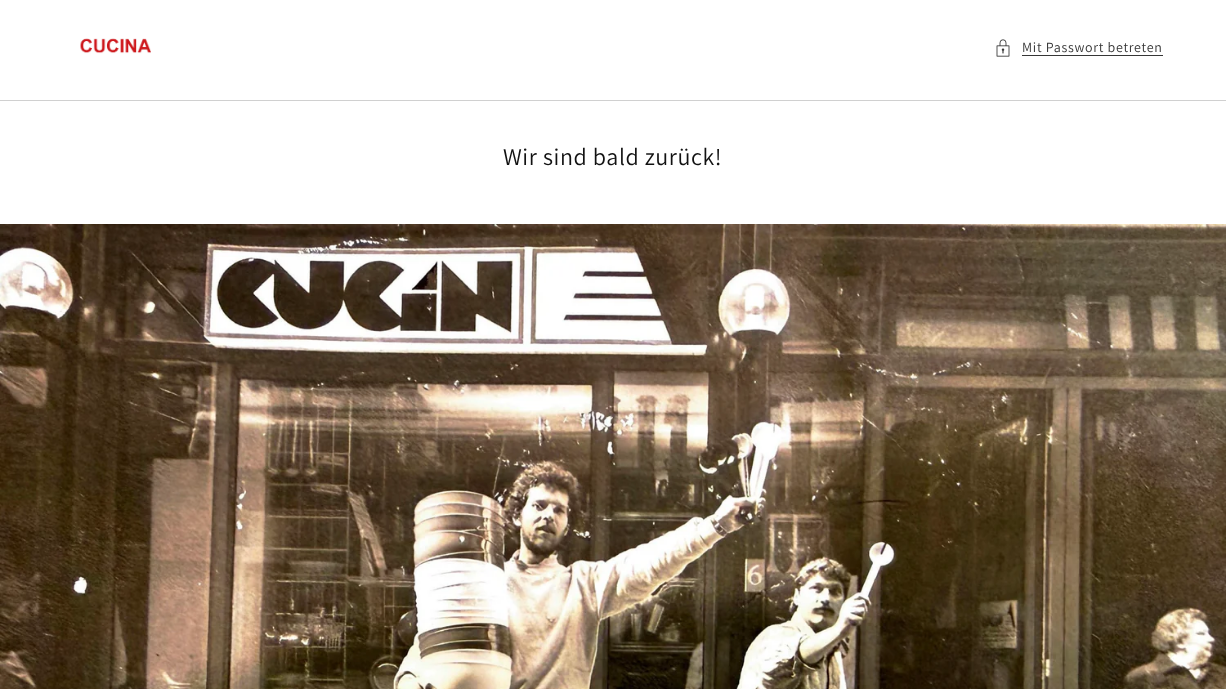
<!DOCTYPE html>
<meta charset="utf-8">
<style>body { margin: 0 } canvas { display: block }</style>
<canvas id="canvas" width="1226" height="689"></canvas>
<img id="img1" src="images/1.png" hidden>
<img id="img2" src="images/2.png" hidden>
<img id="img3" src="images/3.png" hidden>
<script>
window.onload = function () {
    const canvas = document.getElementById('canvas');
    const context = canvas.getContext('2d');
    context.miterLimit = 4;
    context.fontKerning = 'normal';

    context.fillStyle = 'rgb(255, 255, 255)';
    context.fillRect(0, 0, 1226, 689);
    context.drawImage(document.getElementById('img1'), 80, 38, 71, 16);
    context.drawImage(document.getElementById('img2'), 996, 39, 14, 18);
    context.fillStyle = 'rgb(54, 54, 54)';
    context.fillRect(1022, 55, 141, 1);
    context.fillStyle = 'rgb(208, 208, 208)';
    context.fillRect(0, 100, 1226, 1);
    context.drawImage(document.getElementById('img3'), 0, 224, 1226, 465);
    context.letterSpacing = '0.7px';
    context.font = '14px Assistant';
    context.fillStyle = 'rgb(54, 54, 54)';
    context.fillText('Mit Passwort betreten', 1022, 52);
    context.letterSpacing = '0.6px';
    context.font = '24px Assistant';
    context.fillStyle = 'rgb(18, 18, 18)';
    context.fillText('Wir sind bald zurück!', 503, 165);
};
</script>
